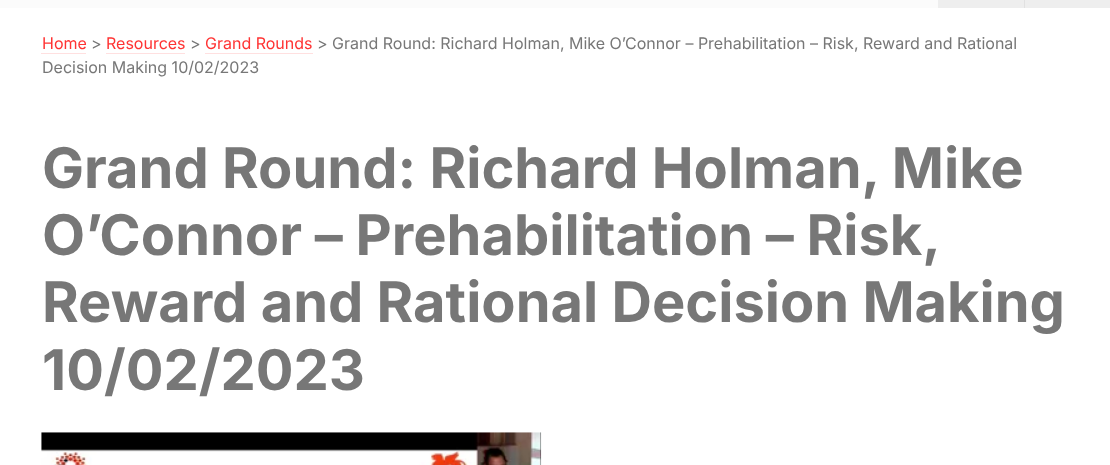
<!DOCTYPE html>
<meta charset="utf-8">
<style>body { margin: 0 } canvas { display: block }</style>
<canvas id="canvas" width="1110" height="465"></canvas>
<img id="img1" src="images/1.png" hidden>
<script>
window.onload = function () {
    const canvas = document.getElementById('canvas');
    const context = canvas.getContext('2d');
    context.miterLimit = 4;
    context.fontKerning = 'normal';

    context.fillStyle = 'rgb(255, 255, 255)';
    context.fillRect(0, 0, 1110, 465);
    context.fillStyle = 'rgb(251, 251, 251)';
    context.fillRect(0, 0, 938, 8);
    context.fillStyle = 'rgb(238, 238, 238)';
    context.fillRect(938, 0, 172, 8);
    context.fillStyle = 'rgb(225, 225, 225)';
    context.fillRect(1024, 0, 1, 8);
    context.fillStyle = 'rgb(255, 224, 224)';
    context.fillRect(41, 53, 45, 1);
    context.fillRect(106, 53, 79, 1);
    context.fillRect(205, 53, 108, 1);
    context.drawImage(document.getElementById('img1'), 41, 432, 501, 33);
    context.font = '16px Inter';
    context.fillStyle = 'rgb(255, 51, 51)';
    context.fillText('Home', 42, 49);
    context.fillStyle = 'rgb(119, 119, 119)';
    context.fillText('>', 91, 49);
    context.fillStyle = 'rgb(255, 51, 51)';
    context.fillText('Resources', 106, 49);
    context.fillStyle = 'rgb(119, 119, 119)';
    context.fillText('>', 190, 49);
    context.fillStyle = 'rgb(255, 51, 51)';
    context.fillText('Grand Rounds', 205, 49);
    context.fillStyle = 'rgb(119, 119, 119)';
    context.fillText('> Grand Round: Richard Holman, Mike O’Connor – Prehabilitation – Risk, Reward and Rational', 317, 49);
    context.fillText('Decision Making 10/02/2023', 42, 73);
    context.font = 'bold 56px Inter';
    context.fillText('Grand Round: Richard Holman, Mike', 42, 188);
    context.wordSpacing = '-0.5px';
    context.fillText('O’Connor – Prehabilitation – Risk,', 42, 255);
    context.wordSpacing = '0px';
    context.fillText('Reward and Rational Decision Making', 42, 322);
    context.fillText('10/02/2023', 42, 390);
};
</script>
